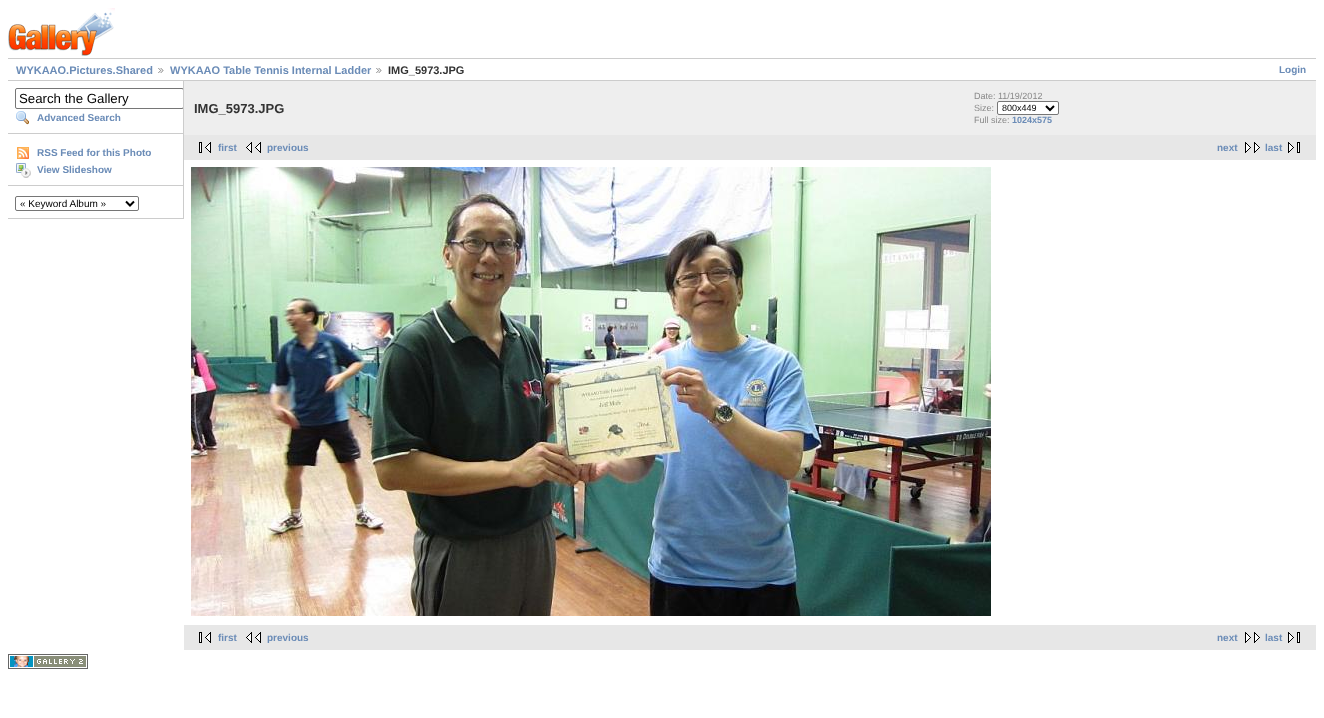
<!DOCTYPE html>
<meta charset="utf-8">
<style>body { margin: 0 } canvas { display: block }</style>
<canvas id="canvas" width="1324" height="718"></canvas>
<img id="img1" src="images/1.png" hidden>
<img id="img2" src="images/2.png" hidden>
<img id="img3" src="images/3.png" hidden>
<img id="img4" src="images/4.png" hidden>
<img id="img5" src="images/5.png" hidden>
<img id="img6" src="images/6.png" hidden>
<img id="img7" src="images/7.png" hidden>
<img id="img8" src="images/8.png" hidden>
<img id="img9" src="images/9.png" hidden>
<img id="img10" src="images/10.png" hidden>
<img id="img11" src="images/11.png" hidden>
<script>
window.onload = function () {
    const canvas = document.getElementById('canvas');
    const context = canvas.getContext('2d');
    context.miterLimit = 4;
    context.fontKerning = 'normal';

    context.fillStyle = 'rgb(255, 255, 255)';
    context.fillRect(0, 0, 1324, 718);
    context.drawImage(document.getElementById('img1'), 8, 8, 107, 48);
    context.fillStyle = 'rgb(204, 204, 204)';
    context.fillRect(8, 58, 1308, 1);
    context.fillRect(8, 80, 1308, 1);
    context.drawImage(document.getElementById('img2'), 158, 68, 6, 5);
    context.drawImage(document.getElementById('img2'), 376, 68, 6, 5);
    context.fillRect(183, 81, 1, 138);
    context.fillRect(8, 133, 175, 1);
    context.save();
    context.beginPath();
    context.rect(8, 81, 175, 138);
    context.clip();
    context.beginPath();
    context.roundRect(15.5, 88.5, 168, 20, 1.5);
    context.strokeStyle = 'rgb(118, 118, 118)';
    context.stroke();
    context.restore();
    context.drawImage(document.getElementById('img3'), 16, 111, 13, 14);
    context.fillRect(8, 185, 175, 1);
    context.drawImage(document.getElementById('img4'), 17, 147, 12, 12);
    context.drawImage(document.getElementById('img5'), 16, 163, 15, 15);
    context.fillRect(8, 218, 175, 1);
    context.beginPath();
    context.roundRect(15.5, 196.5, 123, 14, 1.5);
    context.strokeStyle = 'rgb(118, 118, 118)';
    context.stroke();
    context.beginPath();
    context.moveTo(126, 201.5);
    context.lineTo(130, 205.5);
    context.lineTo(134, 201.5);
    context.strokeStyle = 'rgb(0, 0, 0)';
    context.lineWidth = 2;
    context.stroke();
    context.fillStyle = 'rgb(238, 238, 238)';
    context.fillRect(184, 81, 1132, 54);
    context.fillStyle = 'rgb(255, 255, 255)';
    context.beginPath();
    context.roundRect(997.5, 101.5, 61, 13, 1.5);
    context.fill();
    context.strokeStyle = 'rgb(118, 118, 118)';
    context.lineWidth = 1;
    context.stroke();
    context.beginPath();
    context.moveTo(1046, 106);
    context.lineTo(1050, 110);
    context.lineTo(1054, 106);
    context.strokeStyle = 'rgb(0, 0, 0)';
    context.lineWidth = 2;
    context.stroke();
    context.fillStyle = 'rgb(231, 231, 231)';
    context.fillRect(184, 135, 1132, 25);
    context.drawImage(document.getElementById('img6'), 199, 142, 12, 11);
    context.drawImage(document.getElementById('img7'), 246, 142, 15, 11);
    context.drawImage(document.getElementById('img8'), 1245, 142, 15, 11);
    context.drawImage(document.getElementById('img9'), 1288, 142, 12, 11);
    context.drawImage(document.getElementById('img10'), 191, 167, 800, 449);
    context.fillRect(184, 625, 1132, 25);
    context.drawImage(document.getElementById('img6'), 199, 632, 12, 11);
    context.drawImage(document.getElementById('img7'), 246, 632, 15, 11);
    context.drawImage(document.getElementById('img8'), 1245, 632, 15, 11);
    context.drawImage(document.getElementById('img9'), 1288, 632, 12, 11);
    context.drawImage(document.getElementById('img11'), 8, 654, 80, 15);
    context.font = 'bold 11px Liberation Sans';
    context.fillStyle = 'rgb(107, 140, 183)';
    context.fillText('WYKAAO.Pictures.Shared', 16, 74);
    context.fillText('WYKAAO Table Tennis Internal Ladder', 170, 74);
    context.fillStyle = 'rgb(51, 51, 51)';
    context.fillText('IMG_5973.JPG', 388, 74);
    context.font = 'bold 10px Liberation Sans';
    context.fillStyle = 'rgb(107, 140, 183)';
    context.fillText('Login', 1279, 73);
    context.font = '13.25px Liberation Sans';
    context.fillStyle = 'rgb(0, 0, 0)';
    context.fillText('Search the Gallery', 19, 103);
    context.font = 'bold 10px Liberation Sans';
    context.fillStyle = 'rgb(107, 140, 183)';
    context.fillText('Advanced Search', 37, 121);
    context.fillText('RSS Feed for this Photo', 37, 156);
    context.fillText('View Slideshow', 37, 173);
    context.font = '10px Liberation Sans';
    context.fillStyle = 'rgb(0, 0, 0)';
    context.fillText('« Keyword Album »', 20, 207);
    context.font = 'bold 13px Liberation Sans';
    context.fillStyle = 'rgb(51, 51, 51)';
    context.fillText('IMG_5973.JPG', 194, 113);
    context.font = '9px Liberation Sans';
    context.fillStyle = 'rgb(136, 136, 136)';
    context.fillText('Date: 11/19/2012', 974, 99);
    context.fillText('Size:', 974, 111);
    context.fillStyle = 'rgb(0, 0, 0)';
    context.fillText('800x449', 1002, 111);
    context.fillStyle = 'rgb(136, 136, 136)';
    context.fillText('Full size:', 974, 123);
    context.font = 'bold 9px Liberation Sans';
    context.fillStyle = 'rgb(107, 140, 183)';
    context.fillText('1024x575', 1012, 123);
    context.font = 'bold 10px Liberation Sans';
    context.fillText('first', 218, 151);
    context.fillText('previous', 267, 151);
    context.fillText('next', 1217, 151);
    context.fillText('last', 1265, 151);
    context.fillText('first', 218, 641);
    context.fillText('previous', 267, 641);
    context.fillText('next', 1217, 641);
    context.fillText('last', 1265, 641);
};
</script>
